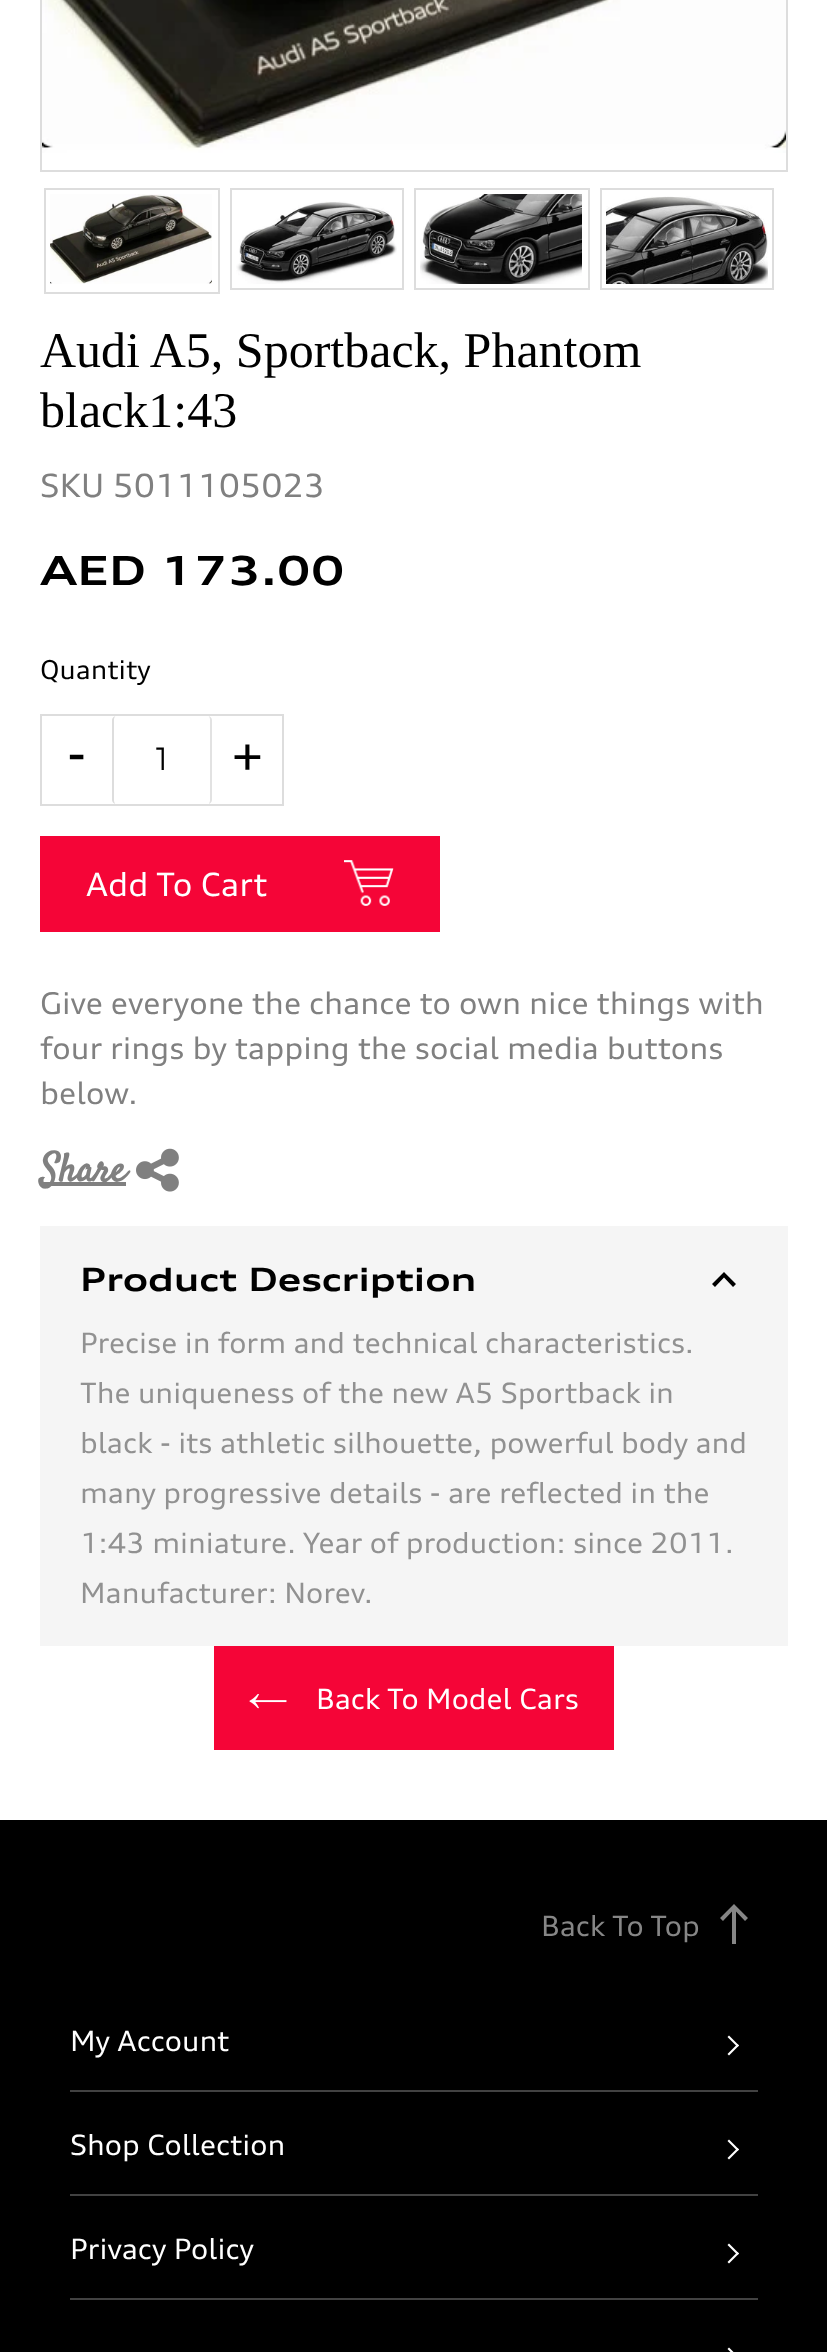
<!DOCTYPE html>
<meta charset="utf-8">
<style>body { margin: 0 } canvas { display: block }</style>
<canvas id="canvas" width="827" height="2352"></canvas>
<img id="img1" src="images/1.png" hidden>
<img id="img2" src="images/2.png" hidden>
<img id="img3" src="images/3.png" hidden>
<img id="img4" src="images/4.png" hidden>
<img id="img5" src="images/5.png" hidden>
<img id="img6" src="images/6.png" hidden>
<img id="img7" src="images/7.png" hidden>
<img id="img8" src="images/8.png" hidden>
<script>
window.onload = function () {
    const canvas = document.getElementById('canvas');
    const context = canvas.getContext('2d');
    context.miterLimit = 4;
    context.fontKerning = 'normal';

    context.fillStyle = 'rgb(255, 255, 255)';
    context.fillRect(0, 0, 827, 2352);
    context.strokeStyle = 'rgb(221, 221, 221)';
    context.lineWidth = 2;
    context.strokeRect(41, -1, 746, 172);
    context.drawImage(document.getElementById('img1'), 42, 0, 744, 153);
    context.strokeRect(45, 189, 174, 104);
    context.drawImage(document.getElementById('img2'), 50, 194, 162, 90);
    context.strokeRect(231, 189, 172, 100);
    context.drawImage(document.getElementById('img3'), 236, 201, 161, 83);
    context.strokeRect(415, 189, 174, 100);
    context.drawImage(document.getElementById('img4'), 420, 194, 162, 90);
    context.strokeRect(601, 189, 172, 100);
    context.drawImage(document.getElementById('img5'), 606, 196, 162, 88);
    context.strokeRect(41, 715, 242, 90);
    context.fillStyle = 'rgb(226, 226, 226)';
    context.beginPath();
    context.moveTo(212, 720);
    context.bezierCurveTo(212, 718, 210, 716, 208, 716);
    context.lineTo(209, 716);
    context.lineTo(210, 719);
    context.lineTo(210, 801);
    context.lineTo(209, 804);
    context.lineTo(208, 804);
    context.bezierCurveTo(210, 804, 212, 802, 212, 800);
    context.closePath();
    context.fill();
    context.fillStyle = 'rgb(221, 221, 221)';
    context.beginPath();
    context.moveTo(116, 716);
    context.bezierCurveTo(114, 716, 112, 718, 112, 720);
    context.lineTo(112, 800);
    context.bezierCurveTo(112, 802, 114, 804, 116, 804);
    context.lineTo(115, 804);
    context.lineTo(114, 801);
    context.lineTo(114, 719);
    context.lineTo(115, 716);
    context.closePath();
    context.fill();
    context.fillStyle = 'rgb(245, 5, 55)';
    context.fillRect(40, 836, 400, 96);
    context.drawImage(document.getElementById('img6'), 344, 860, 50, 46);
    context.fillStyle = 'rgb(128, 128, 128)';
    context.fillRect(40, 1182, 86, 4);
    context.drawImage(document.getElementById('img7'), 136, 1148, 43, 44);
    context.fillStyle = 'rgb(245, 245, 245)';
    context.fillRect(40, 1226, 748, 420);
    context.fillStyle = 'rgb(0, 0, 0)';
    context.beginPath();
    context.moveTo(715, 1287);
    context.lineTo(712, 1284);
    context.lineTo(724, 1272);
    context.lineTo(736, 1284);
    context.lineTo(733, 1287);
    context.lineTo(724, 1277.5);
    context.closePath();
    context.fill();
    context.fillStyle = 'rgb(245, 5, 55)';
    context.fillRect(214, 1646, 400, 104);
    context.drawImage(document.getElementById('img8'), 249, 1694, 38, 15);
    context.fillStyle = 'rgb(0, 0, 0)';
    context.fillRect(0, 1820, 827, 532);
    context.fillStyle = 'rgb(134, 134, 134)';
    context.beginPath();
    context.moveTo(720, 1918);
    context.lineTo(723, 1921);
    context.lineTo(732, 1911.5);
    context.lineTo(732, 1944);
    context.lineTo(736, 1944);
    context.lineTo(736, 1911.5);
    context.lineTo(745, 1921);
    context.lineTo(748, 1918);
    context.lineTo(734, 1904);
    context.closePath();
    context.fill();
    context.fillStyle = 'rgb(66, 66, 66)';
    context.fillRect(70, 2090, 688, 2);
    context.fillStyle = 'rgb(255, 255, 255)';
    context.beginPath();
    context.moveTo(729, 2035.5);
    context.lineTo(739, 2045.5);
    context.lineTo(737.5, 2047);
    context.lineTo(727.5, 2037);
    context.closePath();
    context.fill();
    context.beginPath();
    context.moveTo(737.5, 2044);
    context.lineTo(739, 2045.5);
    context.lineTo(729, 2055.5);
    context.lineTo(727.5, 2054);
    context.closePath();
    context.fill();
    context.fillStyle = 'rgb(66, 66, 66)';
    context.fillRect(70, 2194, 688, 2);
    context.fillStyle = 'rgb(255, 255, 255)';
    context.beginPath();
    context.moveTo(729, 2139.5);
    context.lineTo(739, 2149.5);
    context.lineTo(737.5, 2151);
    context.lineTo(727.5, 2141);
    context.closePath();
    context.fill();
    context.beginPath();
    context.moveTo(737.5, 2148);
    context.lineTo(739, 2149.5);
    context.lineTo(729, 2159.5);
    context.lineTo(727.5, 2158);
    context.closePath();
    context.fill();
    context.fillStyle = 'rgb(66, 66, 66)';
    context.fillRect(70, 2298, 688, 2);
    context.fillStyle = 'rgb(255, 255, 255)';
    context.beginPath();
    context.moveTo(729, 2243.5);
    context.lineTo(739, 2253.5);
    context.lineTo(737.5, 2255);
    context.lineTo(727.5, 2245);
    context.closePath();
    context.fill();
    context.beginPath();
    context.moveTo(737.5, 2252);
    context.lineTo(739, 2253.5);
    context.lineTo(729, 2263.5);
    context.lineTo(727.5, 2262);
    context.closePath();
    context.fill();
    context.beginPath();
    context.moveTo(729, 2347.5);
    context.lineTo(739, 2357.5);
    context.lineTo(737.5, 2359);
    context.lineTo(727.5, 2349);
    context.closePath();
    context.fill();
    context.font = '50px Liberation Serif';
    context.fillStyle = 'rgb(0, 0, 0)';
    context.fillText('Audi A5, Sportback, Phantom', 40, 367);
    context.fillText('black1:43', 40, 427);
    context.font = '32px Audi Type';
    context.fillStyle = 'rgb(128, 128, 128)';
    context.fillText('SKU 5011105023', 40, 497);
    context.font = 'bold 40px Audi Type';
    context.fillStyle = 'rgb(0, 0, 0)';
    context.fillText('AED 173.00', 40, 585);
    context.font = '26px Audi Type';
    context.fillText('Quantity', 40, 679);
    context.font = '50px Audi Type';
    context.fillText('-', 67, 772);
    context.font = '32px Montserrat';
    context.fillText('1', 156, 770);
    context.font = '50px Audi Type';
    context.fillText('+', 232, 772);
    context.font = '32px Audi Type';
    context.fillStyle = 'rgb(255, 255, 255)';
    context.fillText('Add To Cart', 86, 896);
    context.font = '30px Audi Type';
    context.fillStyle = 'rgb(128, 128, 128)';
    context.fillText('Give everyone the chance to own nice things with', 40, 1014);
    context.fillText('four rings by tapping the social media buttons', 40, 1059);
    context.fillText('below.', 40, 1104);
    context.font = 'bold 40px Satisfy';
    context.fillText('Share', 40, 1181);
    context.font = 'bold 32px Audi Type';
    context.fillStyle = 'rgb(0, 0, 0)';
    context.fillText('Product Description', 80, 1291);
    context.font = '28px Audi Type';
    context.fillStyle = 'rgb(145, 145, 145)';
    context.fillText('Precise in form and technical characteristics.', 80, 1353);
    context.fillText('The uniqueness of the new A5 Sportback in', 80, 1403);
    context.fillText('black - its athletic silhouette, powerful body and', 80, 1453);
    context.fillText('many progressive details - are reflected in the', 80, 1503);
    context.fillText('1:43 miniature. Year of production: since 2011.', 80, 1553);
    context.fillText('Manufacturer: Norev.', 80, 1603);
    context.fillStyle = 'rgb(255, 255, 255)';
    context.fillText('Back To Model Cars', 316, 1709);
    context.fillStyle = 'rgb(134, 134, 134)';
    context.fillText('Back To Top', 541, 1936);
    context.fillStyle = 'rgb(255, 255, 255)';
    context.fillText('My Account', 70, 2051);
    context.fillText('Shop Collection', 70, 2155);
    context.fillText('Privacy Policy', 70, 2259);
};
</script>
